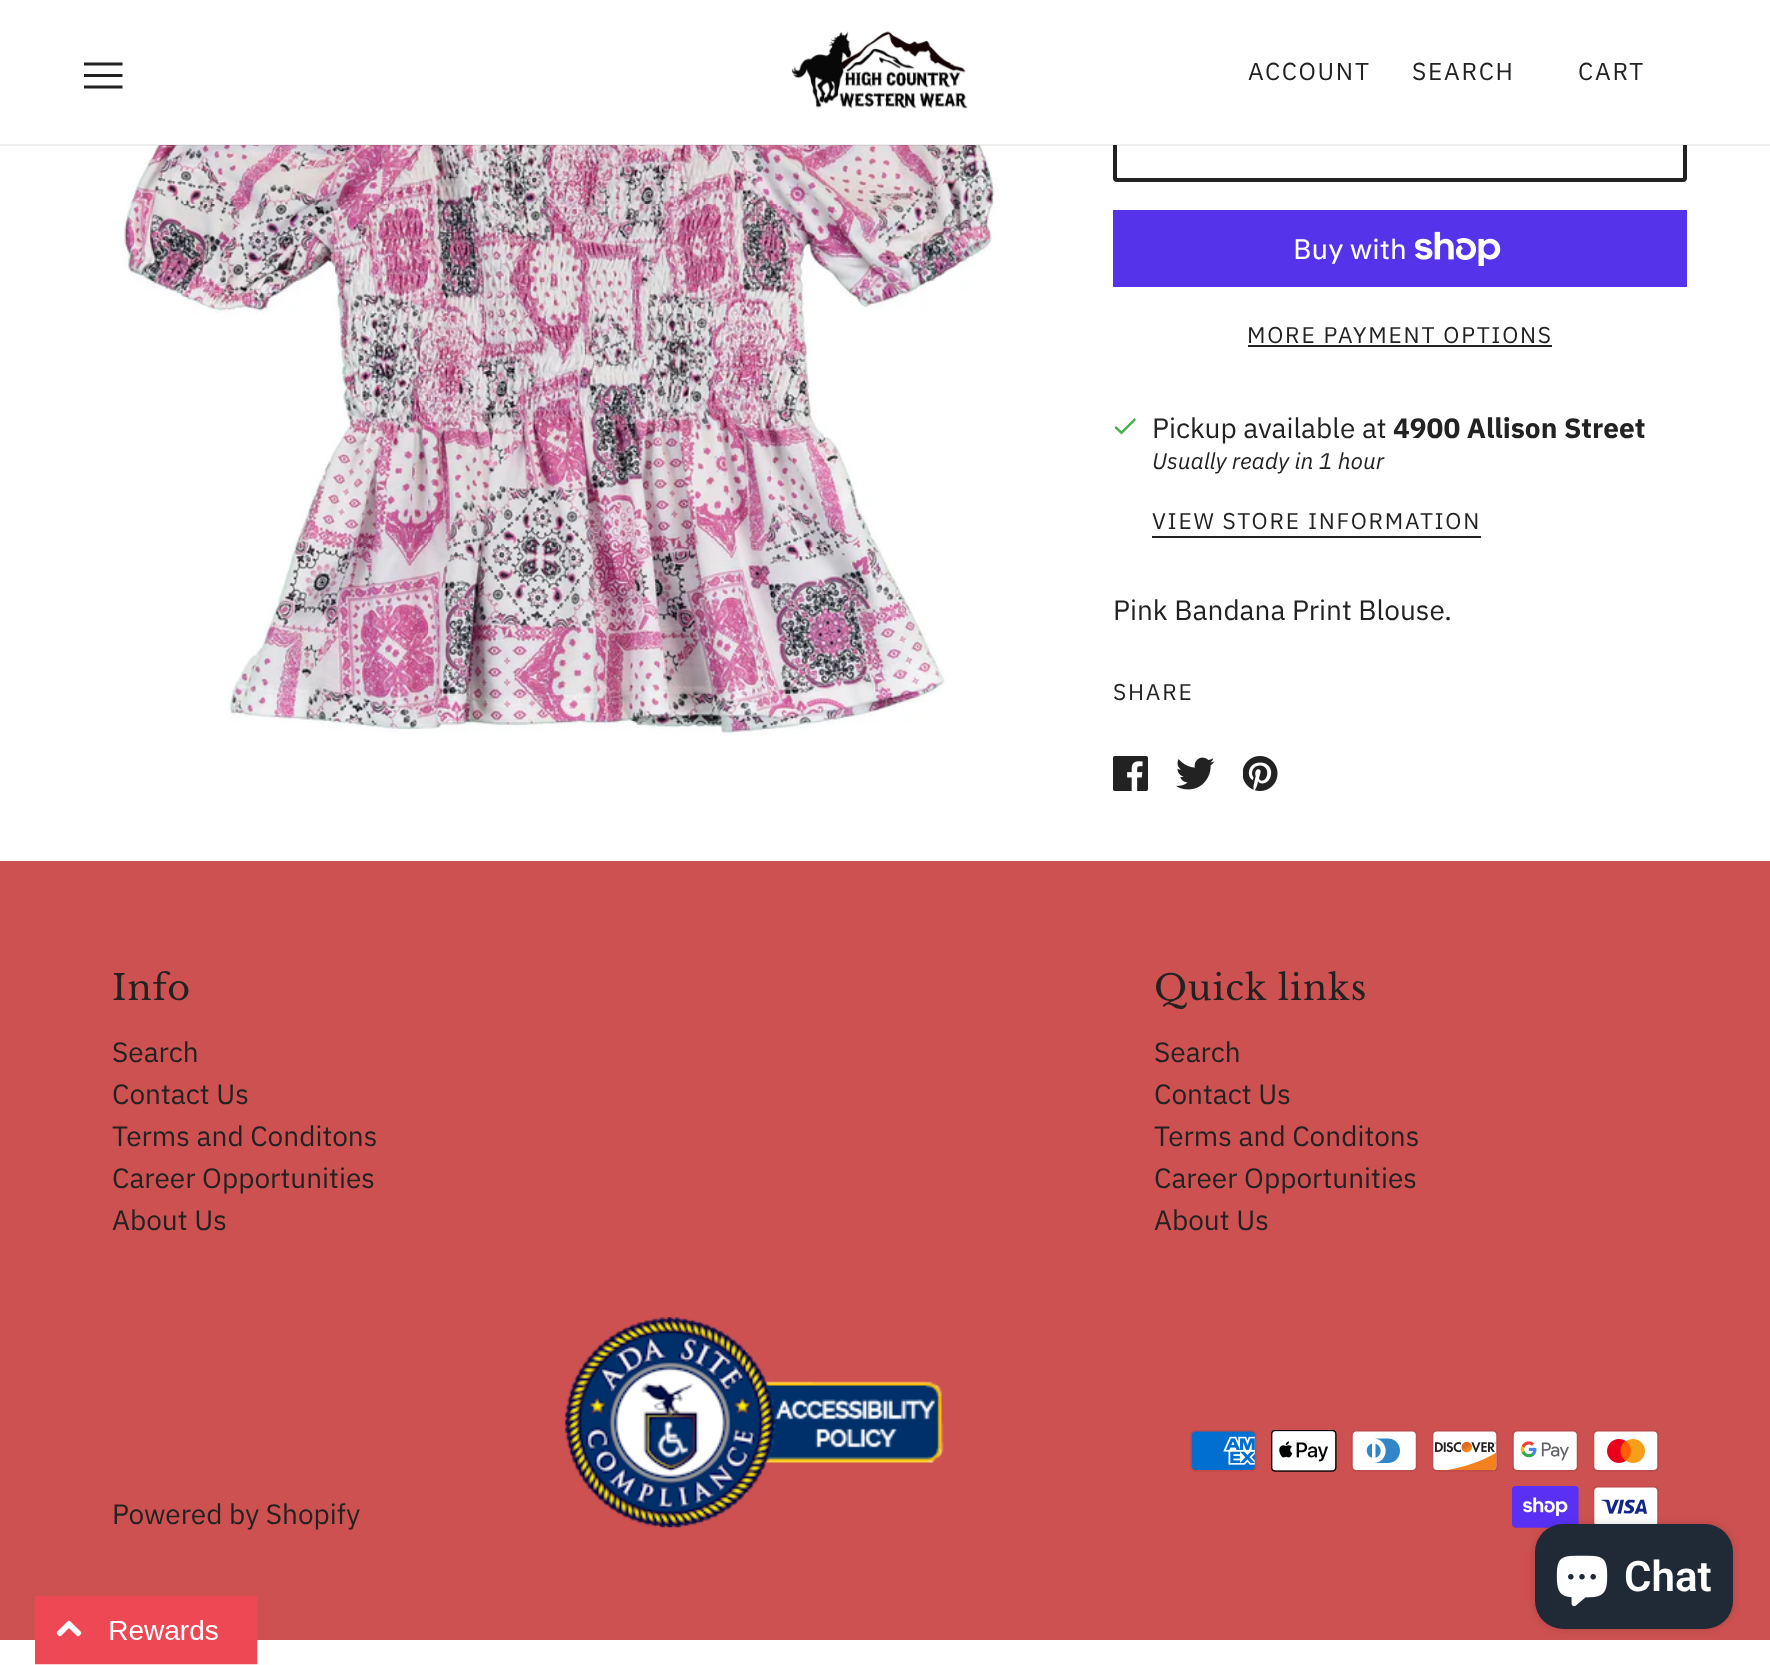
<!DOCTYPE html>
<meta charset="utf-8">
<style>body { margin: 0 } canvas { display: block }</style>
<canvas id="canvas" width="1770" height="1665"></canvas>
<img id="img1" src="images/2.png" hidden>
<img id="img2" src="images/1.png" hidden>
<img id="img3" src="images/3.png" hidden>
<img id="img4" src="images/4.png" hidden>
<img id="img5" src="images/5.png" hidden>
<img id="img6" src="images/6.png" hidden>
<img id="img7" src="images/7.png" hidden>
<img id="img8" src="images/8.png" hidden>
<img id="img9" src="images/9.png" hidden>
<img id="img10" src="images/10.png" hidden>
<img id="img11" src="images/11.png" hidden>
<img id="img12" src="images/12.png" hidden>
<img id="img13" src="images/13.png" hidden>
<img id="img14" src="images/14.png" hidden>
<img id="img15" src="images/15.png" hidden>
<img id="img16" src="images/16.png" hidden>
<img id="img17" src="images/17.png" hidden>
<script>
window.onload = function () {
    const canvas = document.getElementById('canvas');
    const context = canvas.getContext('2d');
    context.miterLimit = 4;
    context.fontKerning = 'normal';

    context.fillStyle = 'rgb(255, 255, 255)';
    context.fillRect(0, 0, 1770, 1665);
    context.beginPath();
    context.roundRect(1115, 105, 570, 75, 2);
    context.strokeStyle = 'rgb(34, 34, 34)';
    context.lineWidth = 4;
    context.stroke();
    context.fillRect(1113, 103, 574, 42);
    context.drawImage(document.getElementById('img1'), 122, 145, 875, 589);
    context.fillStyle = 'rgba(34, 34, 34, 0.07)';
    context.fillRect(0, 144, 1770, 2);
    context.fillStyle = 'rgb(34, 34, 34)';
    context.beginPath();
    context.moveTo(84, 65.5);
    context.lineTo(84, 62.5);
    context.lineTo(122.5, 62.5);
    context.lineTo(122.5, 65.5);
    context.closePath();
    context.moveTo(84, 77);
    context.lineTo(84, 74);
    context.lineTo(122.5, 74);
    context.lineTo(122.5, 77);
    context.closePath();
    context.moveTo(84, 88.5);
    context.lineTo(84, 85.5);
    context.lineTo(122.5, 85.5);
    context.lineTo(122.5, 88.5);
    context.closePath();
    context.fill();
    context.drawImage(document.getElementById('img2'), 791, 31, 177, 78);
    context.fillStyle = 'rgb(84, 51, 235)';
    context.fillRect(1113, 210, 574, 77);
    context.drawImage(document.getElementById('img3'), 1415, 231, 86, 35);
    context.fillStyle = 'rgb(34, 34, 34)';
    context.fillRect(1248, 345, 304, 2);
    context.fillStyle = 'rgb(76, 175, 80)';
    context.beginPath();
    context.moveTo(1121.5, 431);
    context.lineTo(1116, 426);
    context.lineTo(1114.5, 428);
    context.lineTo(1121.5, 434.5);
    context.lineTo(1136, 420);
    context.lineTo(1134.5, 418);
    context.closePath();
    context.fill();
    context.fillStyle = 'rgb(34, 34, 34)';
    context.fillRect(1152, 536, 329, 2);
    context.drawImage(document.getElementById('img4'), 1113, 756, 35, 35);
    context.drawImage(document.getElementById('img5'), 1176, 757, 39, 33);
    context.drawImage(document.getElementById('img6'), 1243, 756, 35, 35);
    context.fillStyle = 'rgb(206, 81, 81)';
    context.fillRect(0, 861, 1770, 779);
    context.drawImage(document.getElementById('img7'), 564, 1317, 380, 211);
    context.drawImage(document.getElementById('img8'), 1190, 1430, 67, 42);
    context.drawImage(document.getElementById('img9'), 1271, 1430, 66, 42);
    context.drawImage(document.getElementById('img10'), 1351, 1430, 67, 42);
    context.drawImage(document.getElementById('img11'), 1432, 1430, 66, 42);
    context.drawImage(document.getElementById('img12'), 1512, 1430, 67, 42);
    context.drawImage(document.getElementById('img13'), 1593, 1430, 66, 42);
    context.drawImage(document.getElementById('img14'), 1512, 1486, 67, 42);
    context.drawImage(document.getElementById('img15'), 1593, 1486, 66, 38);
    context.fillStyle = 'rgba(0, 0, 0, 0.15)';
    context.filter = 'blur(4.5px)';
    context.beginPath();
    context.roundRect(1535, 1524, 198, 105, 28);
    context.fill();
    context.filter = 'none';
    context.fillStyle = 'rgb(32, 42, 54)';
    context.beginPath();
    context.roundRect(1535, 1524, 198, 105, 28);
    context.fill();
    context.drawImage(document.getElementById('img16'), 1556, 1555, 52, 52);
    context.drawImage(document.getElementById('img17'), 35, 1596, 223, 69);
    context.letterSpacing = '1.75px';
    context.font = '24.5px IBM Plex Sans';
    context.fillStyle = 'rgb(34, 34, 34)';
    context.fillText('ACCOUNT', 1248, 80);
    context.fillText('SEARCH', 1412, 80);
    context.fillText('CART', 1578, 80);
    context.letterSpacing = '0px';
    context.font = '28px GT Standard';
    context.fillStyle = 'rgb(255, 255, 255)';
    context.fillText('Buy with', 1293, 259);
    context.letterSpacing = '1.75px';
    context.font = '22.75px IBM Plex Sans';
    context.fillStyle = 'rgb(34, 34, 34)';
    context.fillText('MORE PAYMENT OPTIONS', 1247, 343);
    context.letterSpacing = '0px';
    context.font = '28px IBM Plex Sans';
    context.fillText('Pickup available at', 1152, 438);
    context.font = 'bold 28px IBM Plex Sans';
    context.fillText('4900 Allison Street', 1393, 438);
    context.font = 'italic 22.75px IBM Plex Sans';
    context.fillText('Usually ready in 1 hour', 1152, 469);
    context.letterSpacing = '1.75px';
    context.font = '22.75px IBM Plex Sans';
    context.fillText('VIEW STORE INFORMATION', 1152, 529);
    context.letterSpacing = '0px';
    context.font = '28px IBM Plex Sans';
    context.fillText('Pink Bandana Print Blouse.', 1113, 620);
    context.letterSpacing = '1.75px';
    context.font = '22.75px IBM Plex Sans';
    context.fillText('SHARE', 1113, 700);
    context.letterSpacing = '0.9px';
    context.font = '35px Libre Baskerville';
    context.fillText('Info', 112, 1000);
    context.letterSpacing = '0px';
    context.font = '28px IBM Plex Sans';
    context.fillText('Search', 112, 1062);
    context.fillText('Contact Us', 112, 1104);
    context.fillText('Terms and Conditons', 112, 1146);
    context.fillText('Career Opportunities', 112, 1188);
    context.fillText('About Us', 112, 1230);
    context.letterSpacing = '0.9px';
    context.font = '35px Libre Baskerville';
    context.fillText('Quick links', 1154, 1000);
    context.letterSpacing = '0px';
    context.font = '28px IBM Plex Sans';
    context.fillText('Search', 1154, 1062);
    context.fillText('Contact Us', 1154, 1104);
    context.fillText('Terms and Conditons', 1154, 1146);
    context.fillText('Career Opportunities', 1154, 1188);
    context.fillText('About Us', 1154, 1230);
    context.fillText('Powered by Shopify', 112, 1524);
    context.font = '600 42px Roboto';
    context.fillStyle = 'rgb(255, 255, 255)';
    context.fillText('Chat', 1624, 1591);
};
</script>
